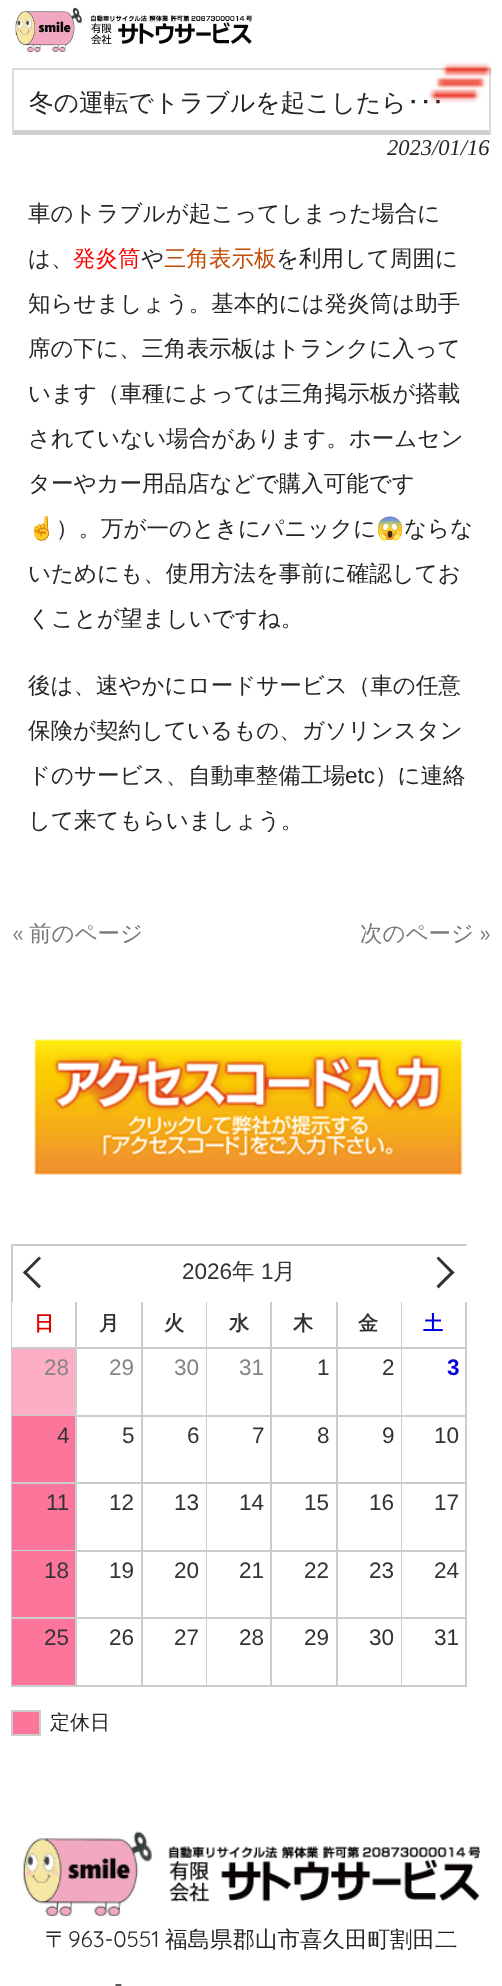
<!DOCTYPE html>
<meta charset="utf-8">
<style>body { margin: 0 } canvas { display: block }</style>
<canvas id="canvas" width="502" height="1986"></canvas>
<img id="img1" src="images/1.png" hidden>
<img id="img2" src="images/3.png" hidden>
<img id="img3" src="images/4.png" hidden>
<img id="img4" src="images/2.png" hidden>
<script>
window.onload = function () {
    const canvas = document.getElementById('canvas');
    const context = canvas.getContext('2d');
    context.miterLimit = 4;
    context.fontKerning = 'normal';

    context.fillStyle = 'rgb(255, 255, 255)';
    context.fillRect(0, 0, 502, 1986);
    context.drawImage(document.getElementById('img1'), 15, 7, 237, 45);
    context.fillStyle = 'rgb(207, 207, 207)';
    context.fillRect(12, 130, 479, 5);
    context.fillStyle = 'rgb(218, 218, 218)';
    context.fillRect(12, 68, 479, 2);
    context.fillRect(489, 68, 2, 67);
    context.fillRect(12, 68, 2, 67);
    context.drawImage(document.getElementById('img2'), 34, 1039, 429, 136);
    context.fillStyle = 'rgb(204, 204, 204)';
    context.fillRect(11, 1244, 456, 2);
    context.fillRect(11, 1685, 456, 2);
    context.fillRect(11, 1244, 2, 442);
    context.fillStyle = 'rgb(51, 51, 51)';
    context.beginPath();
    context.moveTo(25, 1270.5);
    context.lineTo(41, 1286);
    context.lineTo(39, 1288.5);
    context.lineTo(23, 1272.5);
    context.closePath();
    context.fill();
    context.beginPath();
    context.moveTo(39, 1256.5);
    context.lineTo(41, 1258.5);
    context.lineTo(25, 1274.5);
    context.lineTo(23, 1272.5);
    context.closePath();
    context.fill();
    context.beginPath();
    context.moveTo(438.5, 1256.5);
    context.lineTo(454.5, 1272.5);
    context.lineTo(452, 1274.5);
    context.lineTo(436.5, 1258.5);
    context.closePath();
    context.fill();
    context.beginPath();
    context.moveTo(452, 1270.5);
    context.lineTo(454.5, 1272.5);
    context.lineTo(438.5, 1288.5);
    context.lineTo(436.5, 1286);
    context.closePath();
    context.fill();
    context.fillStyle = 'rgb(255, 255, 255)';
    context.fillRect(12, 1302, 1, 45);
    context.fillStyle = 'rgb(204, 204, 204)';
    context.fillRect(75, 1302, 2, 45);
    context.fillRect(141, 1302, 2, 45);
    context.fillRect(206, 1302, 1, 45);
    context.fillRect(270, 1302, 2, 45);
    context.fillRect(336, 1302, 2, 45);
    context.fillRect(401, 1302, 1, 45);
    context.fillRect(465, 1302, 2, 45);
    context.fillRect(12, 1347, 455, 2);
    context.fillRect(75, 1347, 2, 68);
    context.fillStyle = 'rgb(253, 173, 196)';
    context.fillRect(12, 1349, 63, 66);
    context.fillStyle = 'rgb(204, 204, 204)';
    context.fillRect(141, 1347, 2, 68);
    context.fillRect(206, 1347, 1, 68);
    context.fillRect(270, 1347, 2, 68);
    context.fillRect(336, 1347, 2, 68);
    context.fillRect(401, 1347, 1, 68);
    context.fillRect(465, 1347, 2, 68);
    context.fillRect(12, 1415, 65, 1);
    context.fillRect(75, 1415, 2, 67);
    context.fillStyle = 'rgb(252, 118, 156)';
    context.fillRect(12, 1416, 63, 66);
    context.fillStyle = 'rgb(204, 204, 204)';
    context.fillRect(77, 1415, 390, 2);
    context.fillRect(141, 1415, 2, 67);
    context.fillRect(206, 1415, 1, 67);
    context.fillRect(270, 1415, 2, 67);
    context.fillRect(336, 1415, 2, 67);
    context.fillRect(401, 1415, 1, 67);
    context.fillRect(465, 1415, 2, 67);
    context.fillRect(12, 1482, 455, 2);
    context.fillRect(75, 1482, 2, 68);
    context.fillStyle = 'rgb(252, 118, 156)';
    context.fillRect(12, 1484, 63, 66);
    context.fillStyle = 'rgb(204, 204, 204)';
    context.fillRect(141, 1482, 2, 68);
    context.fillRect(206, 1482, 1, 68);
    context.fillRect(270, 1482, 2, 68);
    context.fillRect(336, 1482, 2, 68);
    context.fillRect(401, 1482, 1, 68);
    context.fillRect(465, 1482, 2, 68);
    context.fillRect(12, 1550, 65, 1);
    context.fillRect(75, 1550, 2, 67);
    context.fillStyle = 'rgb(252, 118, 156)';
    context.fillRect(12, 1551, 63, 66);
    context.fillStyle = 'rgb(204, 204, 204)';
    context.fillRect(77, 1550, 390, 2);
    context.fillRect(141, 1550, 2, 67);
    context.fillRect(206, 1550, 1, 67);
    context.fillRect(270, 1550, 2, 67);
    context.fillRect(336, 1550, 2, 67);
    context.fillRect(401, 1550, 1, 67);
    context.fillRect(465, 1550, 2, 67);
    context.fillRect(12, 1617, 455, 2);
    context.fillRect(75, 1617, 2, 68);
    context.fillStyle = 'rgb(252, 118, 156)';
    context.fillRect(12, 1619, 63, 66);
    context.fillStyle = 'rgb(204, 204, 204)';
    context.fillRect(141, 1617, 2, 68);
    context.fillRect(206, 1617, 1, 68);
    context.fillRect(270, 1617, 2, 68);
    context.fillRect(336, 1617, 2, 68);
    context.fillRect(401, 1617, 1, 68);
    context.fillRect(465, 1617, 2, 68);
    context.fillStyle = 'rgb(252, 118, 156)';
    context.beginPath();
    context.rect(12, 1711, 28, 24);
    context.fill();
    context.strokeStyle = 'rgb(204, 204, 204)';
    context.lineWidth = 2;
    context.stroke();
    context.drawImage(document.getElementById('img3'), 22, 1831, 458, 86);
    context.font = '500 24.75px WenQuanYi Zen Hei';
    context.fillStyle = 'rgb(37, 37, 37)';
    context.fillText('冬の運転でトラブルを起こしたら', 29, 111);
    context.font = '24.75px IPAPGothic';
    context.fillText('･･･', 407, 111);
    context.drawImage(document.getElementById('img4'), 429, 62, 63, 41);
    context.font = 'italic 22.5px Liberation Serif';
    context.fillText('2023/01/16', 387, 155);
    context.font = '500 22.5px WenQuanYi Zen Hei';
    context.fillText('車のトラブルが起こってしまった場合に', 28, 221);
    context.fillText('は、', 28, 266);
    context.fillStyle = 'rgb(255, 0, 0)';
    context.fillText('発炎筒', 73, 266);
    context.fillStyle = 'rgb(37, 37, 37)';
    context.fillText('や', 141, 266);
    context.fillStyle = 'rgb(194, 75, 6)';
    context.fillText('三角表示板', 164, 266);
    context.fillStyle = 'rgb(37, 37, 37)';
    context.fillText('を利用して周囲に', 276, 266);
    context.fillText('知らせましょう。基本的には発炎筒は助手', 28, 311);
    context.fillText('席の下に、三角表示板はトランクに入って', 28, 356);
    context.fillText('います（車種によっては三角掲示板が搭載', 28, 401);
    context.fillText('されていない場合があります。ホームセン', 28, 446);
    context.fillText('ターやカー用品店などで購入可能です', 28, 491);
    context.font = '22.5px Noto Color Emoji';
    context.fillText('☝', 28, 536);
    context.font = '500 22.5px WenQuanYi Zen Hei';
    context.fillText('）。万が一のときにパニックに', 56, 536);
    context.font = '22.5px Noto Color Emoji';
    context.fillText('😱', 376, 536);
    context.font = '500 22.5px WenQuanYi Zen Hei';
    context.fillText('ならな', 404, 536);
    context.fillText('いためにも、使用方法を事前に確認してお', 28, 581);
    context.fillText('くことが望ましいですね。', 28, 626);
    context.fillText('後は、速やかにロードサービス（車の任意', 28, 693);
    context.fillText('保険が契約しているもの、ガソリンスタン', 28, 738);
    context.fillText('ドのサービス、自動車整備工場', 28, 783);
    context.font = '22.5px Liberation Sans';
    context.fillText('etc', 345, 783);
    context.font = '500 22.5px WenQuanYi Zen Hei';
    context.fillText('）に連絡', 375, 783);
    context.fillText('して来てもらいましょう。', 28, 828);
    context.font = '22.5px Quicksand';
    context.fillStyle = 'rgb(119, 119, 119)';
    context.fillText('«', 13, 941);
    context.font = '500 22.5px WenQuanYi Zen Hei';
    context.fillText('前のページ', 29, 941);
    context.fillText('次のページ', 360, 941);
    context.font = '22.5px Quicksand';
    context.fillText('»', 480, 941);
    context.font = '22.5px Liberation Sans';
    context.fillStyle = 'rgb(51, 51, 51)';
    context.fillText('2026', 182, 1279);
    context.font = '500 22.5px WenQuanYi Zen Hei';
    context.fillText('年', 232, 1279);
    context.font = '22.5px Liberation Sans';
    context.fillText('1', 261, 1279);
    context.font = '500 22.5px WenQuanYi Zen Hei';
    context.fillText('月', 273, 1279);
    context.font = 'bold 20px WenQuanYi Zen Hei';
    context.fillStyle = 'rgb(221, 0, 0)';
    context.fillText('日', 34, 1330);
    context.fillStyle = 'rgb(51, 51, 51)';
    context.fillText('月', 99, 1330);
    context.fillText('火', 164, 1330);
    context.fillText('水', 229, 1330);
    context.fillText('木', 293, 1330);
    context.fillText('金', 358, 1330);
    context.fillStyle = 'rgb(0, 0, 221)';
    context.fillText('土', 423, 1330);
    context.font = '22.5px Liberation Sans';
    context.fillStyle = 'rgb(133, 133, 133)';
    context.fillText('28', 44, 1375);
    context.fillText('29', 109, 1375);
    context.fillText('30', 174, 1375);
    context.fillText('31', 239, 1375);
    context.fillStyle = 'rgb(51, 51, 51)';
    context.fillText('1', 317, 1375);
    context.fillText('2', 382, 1375);
    context.font = 'bold 22.5px Liberation Sans';
    context.fillStyle = 'rgb(0, 0, 221)';
    context.fillText('3', 447, 1375);
    context.font = '22.5px Liberation Sans';
    context.fillStyle = 'rgb(51, 51, 51)';
    context.fillText('4', 57, 1443);
    context.fillText('5', 122, 1443);
    context.fillText('6', 187, 1443);
    context.fillText('7', 252, 1443);
    context.fillText('8', 317, 1443);
    context.fillText('9', 382, 1443);
    context.fillText('10', 434, 1443);
    context.fillText('11', 46, 1510);
    context.fillText('12', 109, 1510);
    context.fillText('13', 174, 1510);
    context.fillText('14', 239, 1510);
    context.fillText('15', 304, 1510);
    context.fillText('16', 369, 1510);
    context.fillText('17', 434, 1510);
    context.fillText('18', 44, 1578);
    context.fillText('19', 109, 1578);
    context.fillText('20', 174, 1578);
    context.fillText('21', 239, 1578);
    context.fillText('22', 304, 1578);
    context.fillText('23', 369, 1578);
    context.fillText('24', 434, 1578);
    context.fillText('25', 44, 1645);
    context.fillText('26', 109, 1645);
    context.fillText('27', 174, 1645);
    context.fillText('28', 239, 1645);
    context.fillText('29', 304, 1645);
    context.fillText('30', 369, 1645);
    context.fillText('31', 434, 1645);
    context.font = '500 20px WenQuanYi Zen Hei';
    context.fillStyle = 'rgb(37, 37, 37)';
    context.fillText('定休日', 50, 1729);
    context.font = '500 22.5px WenQuanYi Zen Hei';
    context.fillText('〒', 45, 1947);
    context.font = '22.5px Quicksand';
    context.fillText('963-0551', 68, 1947);
    context.font = '500 22.5px WenQuanYi Zen Hei';
    context.fillText('福島県郡山市喜久田町割田二', 165, 1947);
    context.font = '22.5px Quicksand';
    context.fillText('-', 114, 1992);
};
</script>
